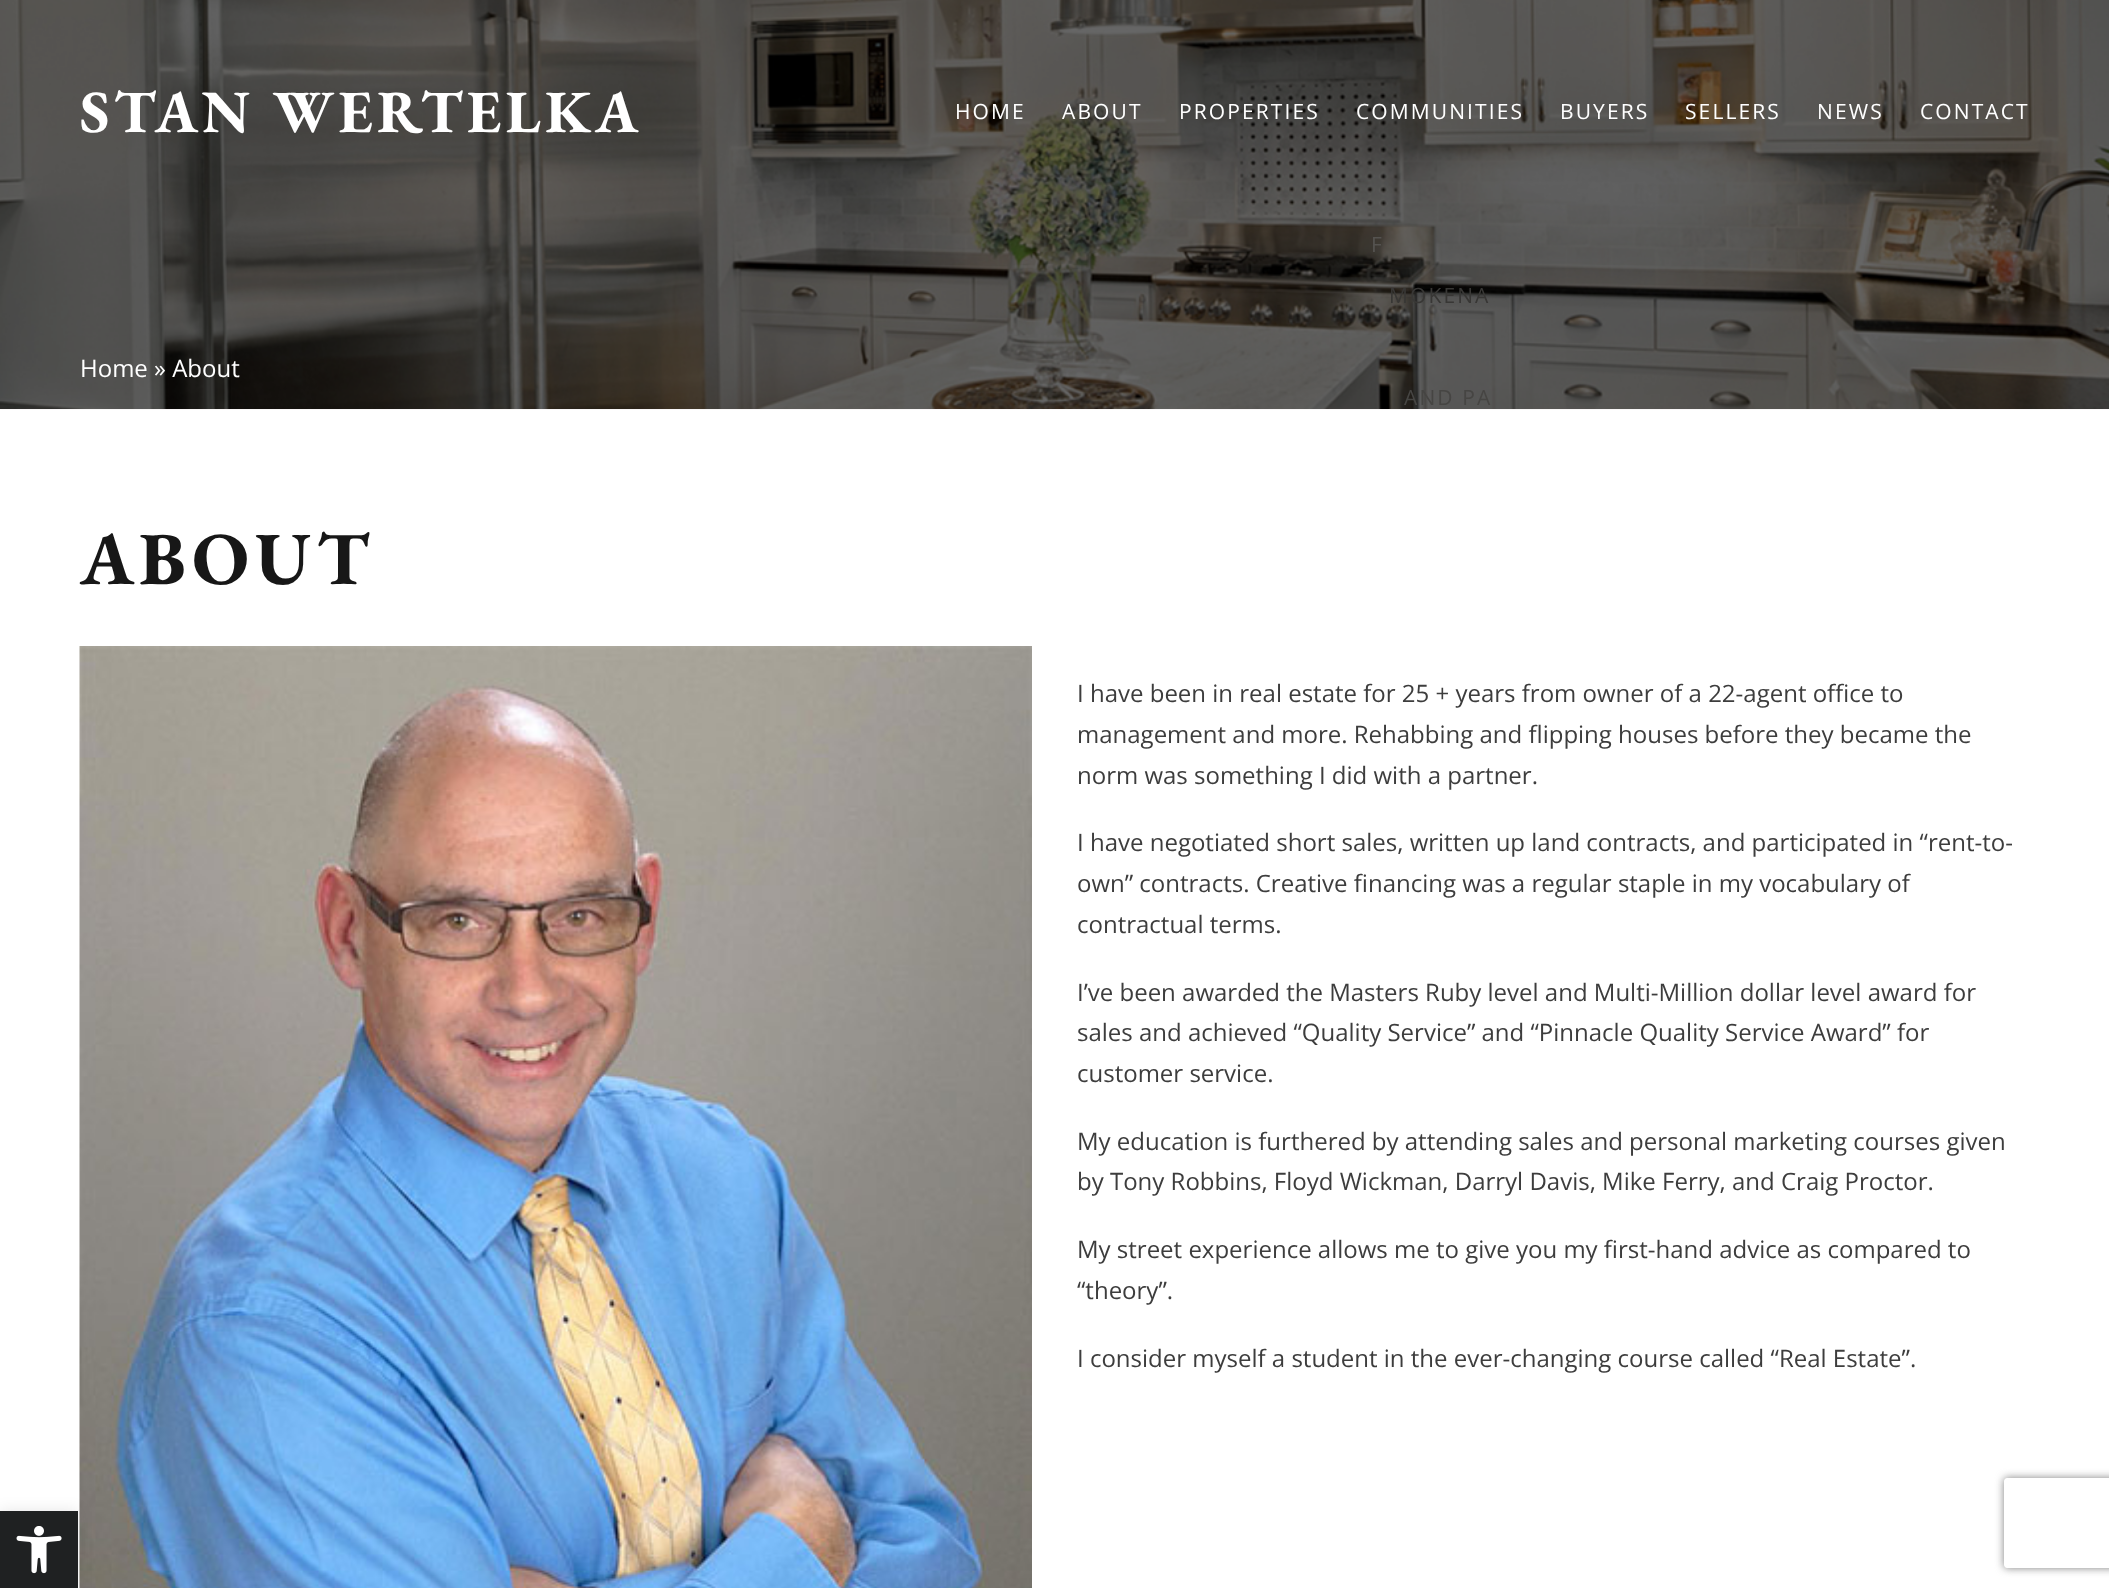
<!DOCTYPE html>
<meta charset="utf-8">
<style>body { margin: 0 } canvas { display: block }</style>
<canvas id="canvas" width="2109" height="1588"></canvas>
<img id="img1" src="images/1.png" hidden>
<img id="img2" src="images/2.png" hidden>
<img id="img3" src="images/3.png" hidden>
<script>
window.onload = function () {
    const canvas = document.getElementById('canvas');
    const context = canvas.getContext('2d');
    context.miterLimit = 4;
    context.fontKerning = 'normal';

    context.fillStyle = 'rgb(255, 255, 255)';
    context.fillRect(0, 0, 2109, 1588);
    context.fillStyle = 'rgb(249, 247, 247)';
    context.fillRect(0, 409, 2109, 1);
    context.drawImage(document.getElementById('img1'), 0, 0, 2109, 409);
    context.drawImage(document.getElementById('img2'), 79, 646, 953, 942);
    context.fillStyle = 'rgba(0, 0, 0, 0.1)';
    context.filter = 'blur(7.5px)';
    context.beginPath();
    context.rect(0, 1511, 78, 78);
    context.fill();
    context.filter = 'none';
    context.fillStyle = 'rgb(31, 33, 34)';
    context.fillRect(0, 1511, 78, 77);
    context.drawImage(document.getElementById('img3'), 16, 1526, 46, 48);
    context.save();
    context.beginPath();
    context.moveTo(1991, 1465);
    context.lineTo(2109, 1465);
    context.lineTo(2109, 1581);
    context.lineTo(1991, 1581);
    context.closePath();
    context.moveTo(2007, 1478);
    context.lineTo(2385, 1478);
    context.bezierCurveTo(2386.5, 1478, 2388, 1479.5, 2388, 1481);
    context.lineTo(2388, 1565);
    context.bezierCurveTo(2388, 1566.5, 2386.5, 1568, 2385, 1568);
    context.lineTo(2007, 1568);
    context.bezierCurveTo(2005.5, 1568, 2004, 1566.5, 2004, 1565);
    context.lineTo(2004, 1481);
    context.bezierCurveTo(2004, 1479.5, 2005.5, 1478, 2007, 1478);
    context.closePath();
    context.clip('evenodd');
    context.fillStyle = 'rgb(128, 128, 128)';
    context.filter = 'blur(4px)';
    context.beginPath();
    context.roundRect(2004, 1478, 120, 90, 3);
    context.fill();
    context.filter = 'none';
    context.restore();
    context.letterSpacing = '4.25px';
    context.font = 'bold 60px EB Garamond';
    context.fillStyle = 'rgb(255, 255, 255)';
    context.fillText('STAN WERTELKA', 80, 132);
    context.letterSpacing = '2.1px';
    context.font = '21px Open Sans';
    context.fillText('HOME', 955, 119);
    context.fillText('ABOUT', 1062, 119);
    context.fillText('PROPERTIES', 1179, 119);
    context.fillText('COMMUNITIES', 1356, 119);
    context.fillStyle = 'rgb(85, 83, 80)';
    context.fillText('F', 1371, 252);
    context.fillStyle = 'rgb(56, 55, 53)';
    context.fillText('MOKENA', 1389, 303);
    context.fillStyle = 'rgb(70, 69, 67)';
    context.fillText('AND PA', 1404, 405);
    context.fillStyle = 'rgb(255, 255, 255)';
    context.fillText('BUYERS', 1560, 119);
    context.fillText('SELLERS', 1685, 119);
    context.fillText('NEWS', 1817, 119);
    context.fillText('CONTACT', 1920, 119);
    context.letterSpacing = '0px';
    context.font = '24px Open Sans';
    context.fillText('Home » About', 80, 377);
    context.letterSpacing = '6px';
    context.font = 'bold 75px EB Garamond';
    context.fillStyle = 'rgb(23, 23, 23)';
    context.fillText('ABOUT', 80, 584);
    context.letterSpacing = '0px';
    context.font = '24px Open Sans';
    context.fillStyle = 'rgb(61, 61, 61)';
    context.fillText('I have been in real estate for 25 + years from owner of a 22-agent office to', 1077, 702);
    context.fillText('management and more. Rehabbing and flipping houses before they became the', 1077, 743);
    context.fillText('norm was something I did with a partner.', 1077, 784);
    context.fillText('I have negotiated short sales, written up land contracts, and participated in “rent-to-', 1077, 851);
    context.fillText('own” contracts. Creative financing was a regular staple in my vocabulary of', 1077, 892);
    context.fillText('contractual terms.', 1077, 933);
    context.fillText('I’ve been awarded the Masters Ruby level and Multi-Million dollar level award for', 1077, 1001);
    context.fillText('sales and achieved “Quality Service” and “Pinnacle Quality Service Award” for', 1077, 1041);
    context.fillText('customer service.', 1077, 1082);
    context.fillText('My education is furthered by attending sales and personal marketing courses given', 1077, 1150);
    context.fillText('by Tony Robbins, Floyd Wickman, Darryl Davis, Mike Ferry, and Craig Proctor.', 1077, 1190);
    context.fillText('My street experience allows me to give you my first-hand advice as compared to', 1077, 1258);
    context.fillText('“theory”.', 1077, 1299);
    context.fillText('I consider myself a student in the ever-changing course called “Real Estate”.', 1077, 1367);
};
</script>
